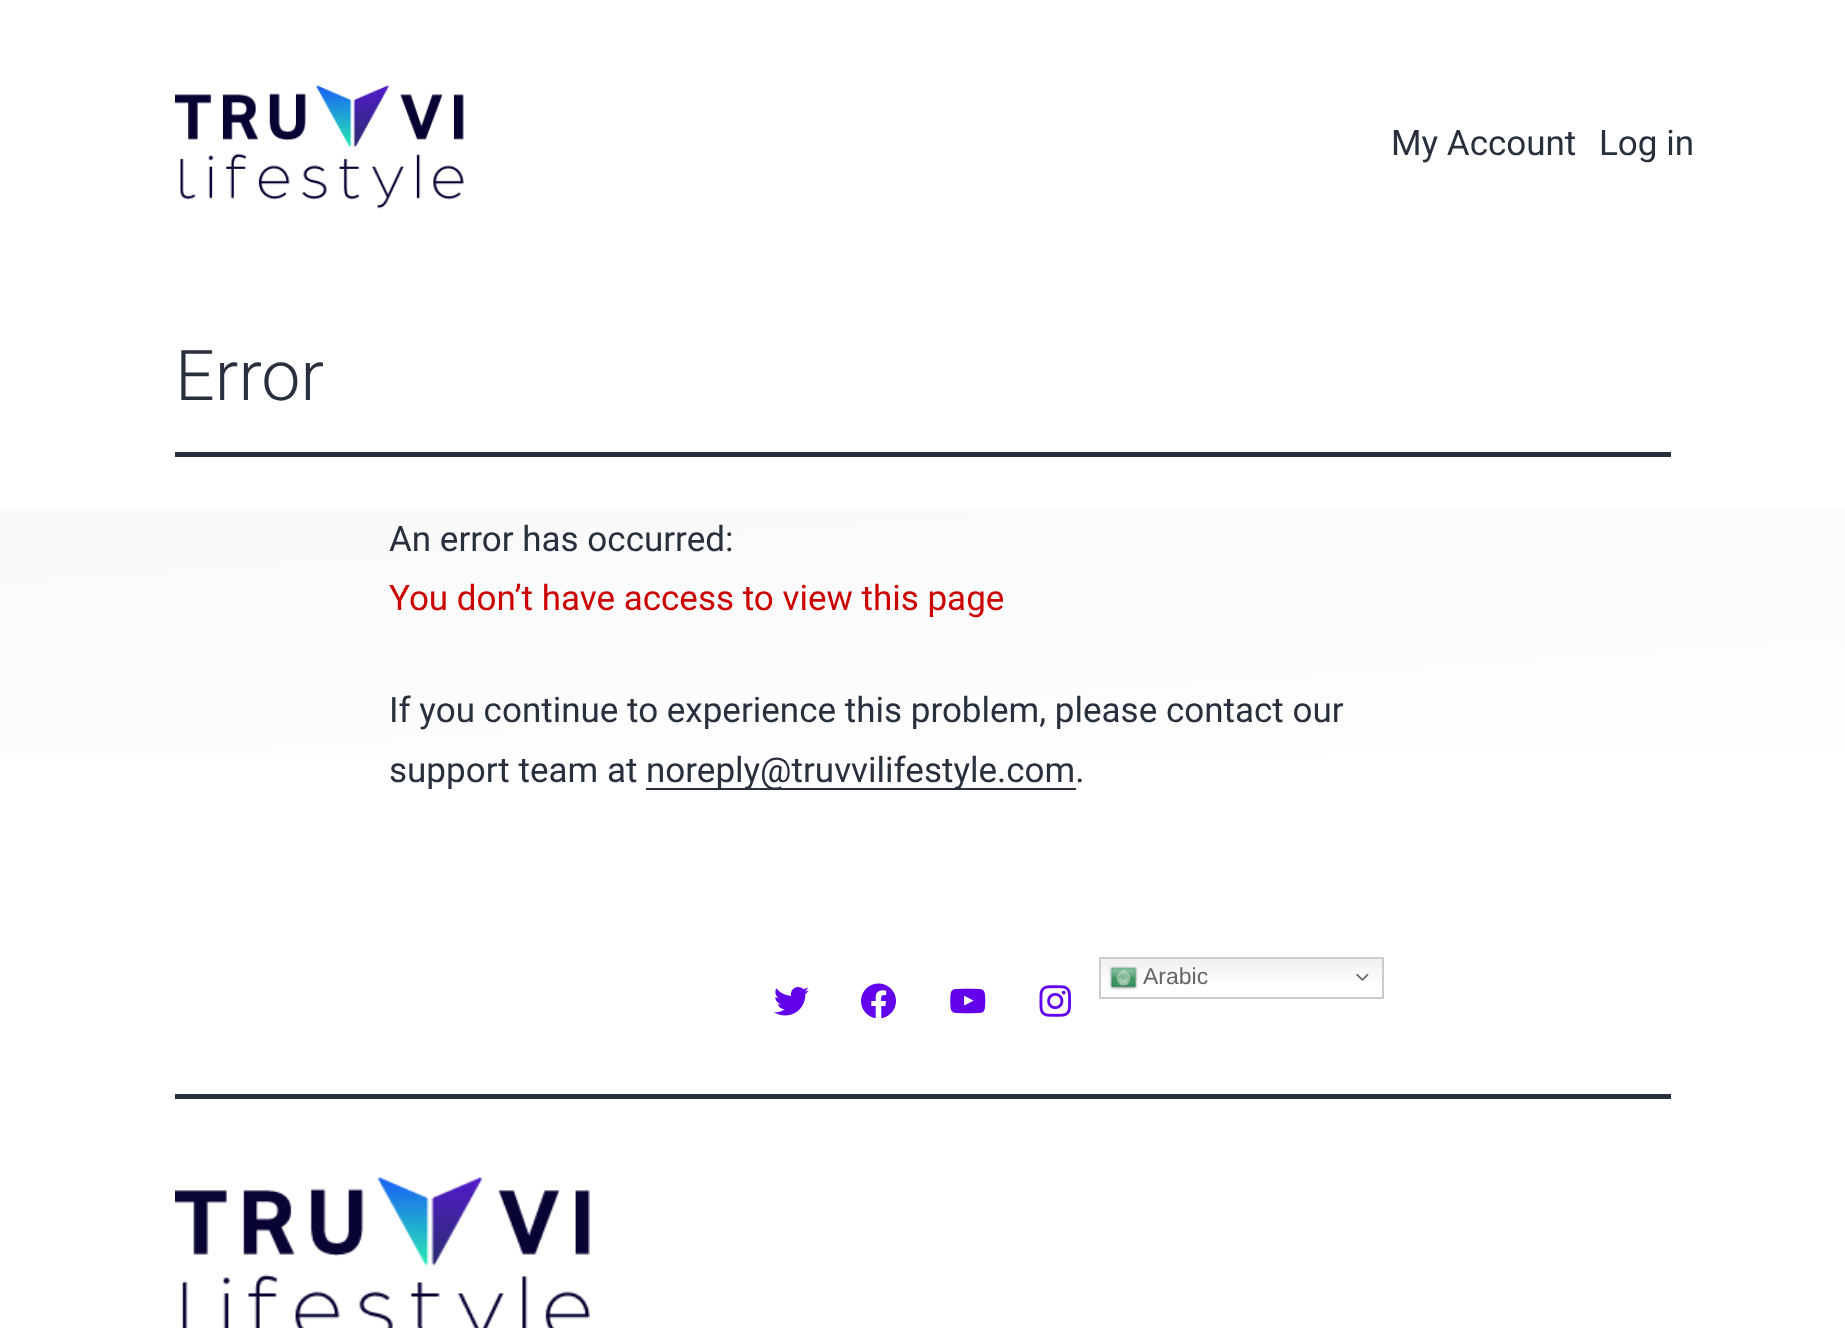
<!DOCTYPE html>
<meta charset="utf-8">
<style>body { margin: 0 } canvas { display: block }</style>
<canvas id="canvas" width="1845" height="1328"></canvas>
<img id="img1" src="images/1.png" hidden>
<img id="img2" src="images/2.png" hidden>
<img id="img3" src="images/3.png" hidden>
<img id="img4" src="images/4.png" hidden>
<img id="img5" src="images/5.png" hidden>
<img id="img6" src="images/6.png" hidden>
<img id="img7" src="images/7.png" hidden>
<img id="img8" src="images/8.png" hidden>
<script>
window.onload = function () {
    const canvas = document.getElementById('canvas');
    const context = canvas.getContext('2d');
    context.miterLimit = 4;
    context.fontKerning = 'normal';
    let gradient;

    context.fillStyle = 'rgb(255, 255, 255)';
    context.fillRect(0, 0, 1845, 1328);
    context.drawImage(document.getElementById('img1'), 175, 85, 289, 124);
    context.fillStyle = 'rgb(40, 48, 61)';
    context.fillRect(175, 452, 1496, 5);
    gradient = context.createLinearGradient(909, 446, 938, 863);
    gradient.addColorStop(0, 'rgb(249, 249, 249)');
    gradient.addColorStop(1, 'rgb(255, 255, 255)');
    context.fillStyle = gradient;
    context.fillRect(0, 509, 1845, 245);
    context.fillStyle = 'rgb(40, 48, 61)';
    context.fillRect(646, 788, 430, 2);
    gradient = context.createLinearGradient(1242, 957, 1242, 999);
    gradient.addColorStop(0, 'rgb(239, 239, 239)');
    gradient.addColorStop(0.7, 'rgb(255, 255, 255)');
    context.fillStyle = gradient;
    context.fillRect(1101, 959, 281, 23);
    context.strokeStyle = 'rgb(204, 204, 204)';
    context.lineWidth = 2;
    context.strokeRect(1100, 958, 283, 40);
    context.drawImage(document.getElementById('img2'), 1109, 966, 29, 24);
    context.drawImage(document.getElementById('img3'), 1356, 973, 13, 8);
    context.drawImage(document.getElementById('img4'), 774, 987, 35, 29);
    context.drawImage(document.getElementById('img5'), 861, 983, 35, 36);
    context.drawImage(document.getElementById('img6'), 950, 988, 36, 26);
    context.drawImage(document.getElementById('img7'), 1039, 985, 32, 32);
    context.fillStyle = 'rgb(40, 48, 61)';
    context.fillRect(175, 1094, 1496, 5);
    context.drawImage(document.getElementById('img8'), 175, 1177, 415, 151);
    context.font = '35px Roboto';
    context.fillText('My Account', 1391, 155);
    context.fillText('Log in', 1599, 155);
    context.font = '300 70px Roboto';
    context.fillText('Error', 175, 400);
    context.font = '35px Roboto';
    context.fillText('An error has occurred:', 389, 551);
    context.fillStyle = 'rgb(204, 0, 0)';
    context.fillText('You don’t have access to view this page', 389, 610);
    context.fillStyle = 'rgb(40, 48, 61)';
    context.fillText('If you continue to experience this problem, please contact our', 389, 722);
    context.fillText('support team at', 389, 782);
    context.fillText('noreply@truvvilifestyle.com.', 646, 782);
    context.font = '23px Liberation Sans';
    context.fillStyle = 'rgb(102, 102, 102)';
    context.fillText('Arabic', 1143, 984);
};
</script>
